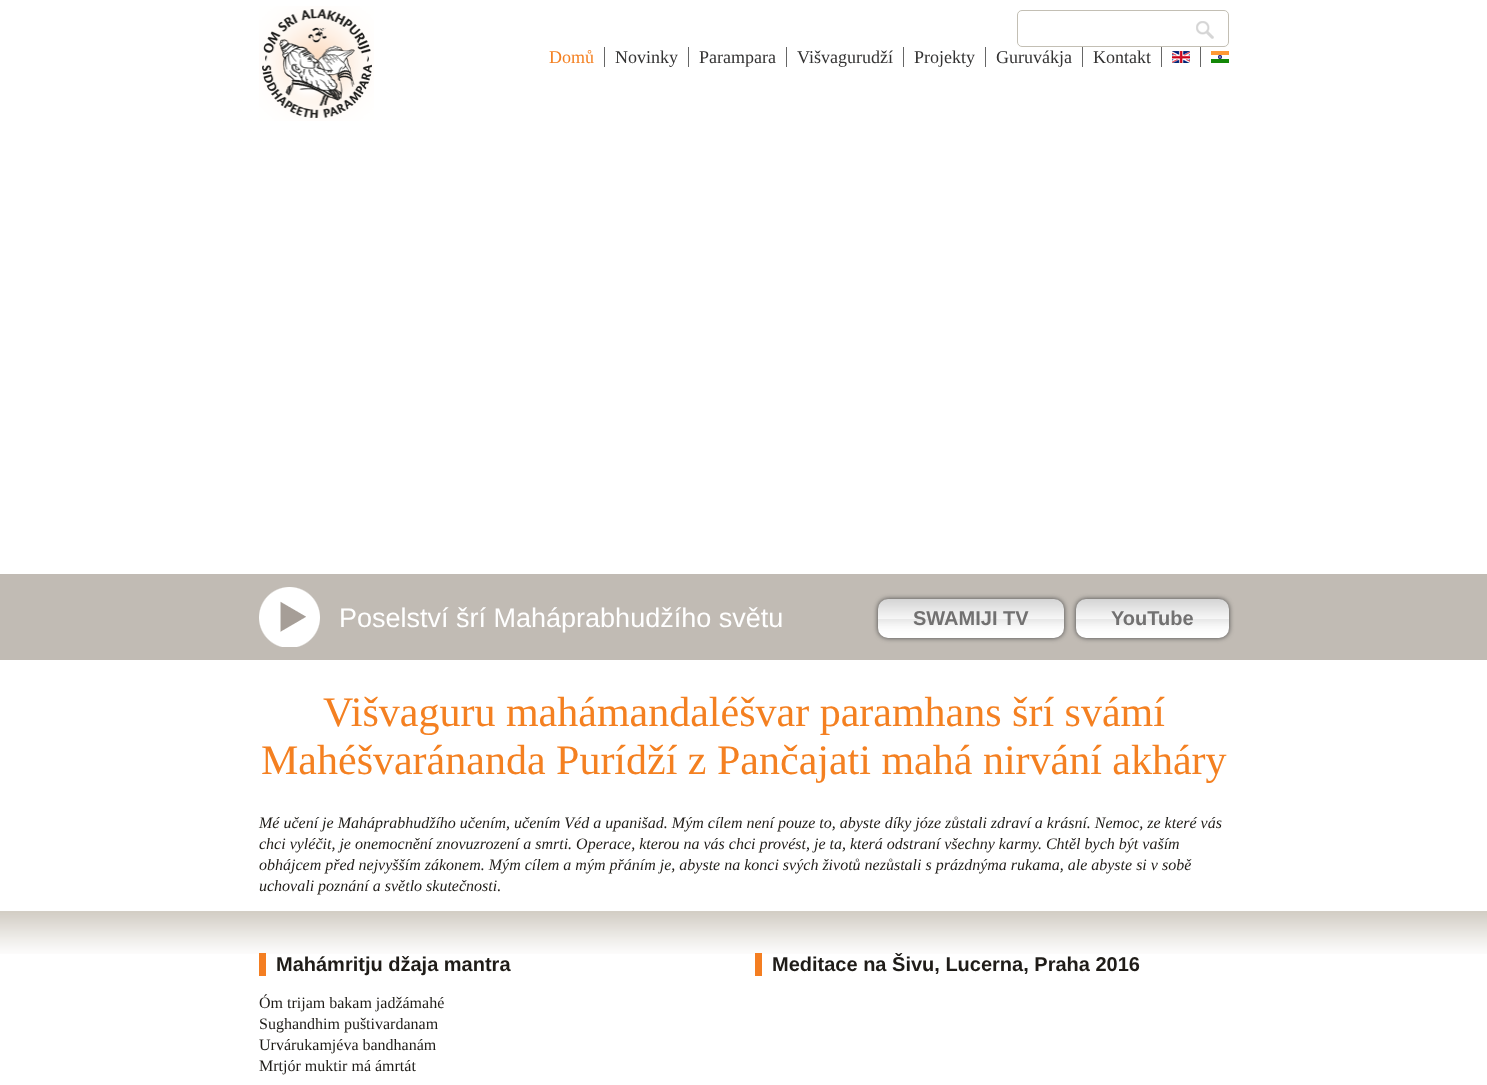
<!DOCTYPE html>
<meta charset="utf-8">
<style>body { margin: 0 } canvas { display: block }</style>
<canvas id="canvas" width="1487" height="1085"></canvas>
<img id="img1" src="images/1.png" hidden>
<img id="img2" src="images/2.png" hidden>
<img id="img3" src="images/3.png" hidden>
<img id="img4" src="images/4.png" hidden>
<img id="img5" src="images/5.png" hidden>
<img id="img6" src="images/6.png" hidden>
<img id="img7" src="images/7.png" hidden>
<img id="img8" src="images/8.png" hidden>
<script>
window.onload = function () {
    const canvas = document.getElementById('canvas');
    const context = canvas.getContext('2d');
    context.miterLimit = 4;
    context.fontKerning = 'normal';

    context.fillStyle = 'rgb(255, 255, 255)';
    context.fillRect(0, 0, 1487, 1085);
    context.drawImage(document.getElementById('img1'), 259, 6, 115, 115);
    context.beginPath();
    context.roundRect(1017.5, 10.5, 211, 36, 4.5);
    context.strokeStyle = 'rgb(195, 191, 180)';
    context.stroke();
    context.drawImage(document.getElementById('img2'), 1196, 21, 18, 18);
    context.fillStyle = 'rgb(102, 102, 102)';
    context.fillRect(604, 47, 1, 20);
    context.fillRect(688, 47, 1, 20);
    context.fillRect(786, 47, 1, 20);
    context.fillRect(903, 47, 1, 20);
    context.fillRect(985, 47, 1, 20);
    context.fillRect(1082, 47, 1, 20);
    context.fillRect(1161, 47, 1, 20);
    context.drawImage(document.getElementById('img3'), 1172, 51, 18, 12);
    context.fillRect(1200, 47, 1, 20);
    context.drawImage(document.getElementById('img4'), 1211, 51, 18, 12);
    context.fillStyle = 'rgb(193, 187, 180)';
    context.fillRect(0, 574, 1487, 86);
    context.drawImage(document.getElementById('img5'), 259, 587, 61, 60);
    context.fillStyle = 'rgb(68, 68, 68)';
    context.filter = 'blur(2.5px)';
    context.beginPath();
    context.roundRect(878, 599, 186, 39, 10);
    context.fill();
    context.filter = 'none';
    context.drawImage(document.getElementById('img6'), 878, 599, 186, 39);
    context.filter = 'blur(2.5px)';
    context.beginPath();
    context.roundRect(1076, 599, 153, 39, 10);
    context.fill();
    context.filter = 'none';
    context.drawImage(document.getElementById('img7'), 1076, 599, 153, 39);
    context.drawImage(document.getElementById('img8'), 0, 911, 1487, 43);
    context.fillStyle = 'rgb(244, 126, 33)';
    context.fillRect(259, 953, 7, 23);
    context.fillRect(755, 953, 7, 23);
    context.font = '18px Liberation Serif';
    context.fillStyle = 'rgb(244, 128, 33)';
    context.fillText('Domů', 549, 63);
    context.fillStyle = 'rgb(51, 50, 50)';
    context.fillText('Novinky', 615, 63);
    context.fillText('Parampara', 699, 63);
    context.fillText('Višvagurudží', 797, 63);
    context.fillText('Projekty', 914, 63);
    context.fillText('Guruvákja', 996, 63);
    context.fillText('Kontakt', 1093, 63);
    context.font = '27px Liberation Sans';
    context.fillStyle = 'rgb(255, 255, 255)';
    context.fillText('Poselství šrí Maháprabhudžího světu', 339, 627);
    context.font = 'bold 20px Liberation Sans';
    context.fillStyle = 'rgb(114, 113, 113)';
    context.fillText('SWAMIJI TV', 913, 625);
    context.fillText('YouTube', 1111, 625);
    context.font = '42px Liberation Serif';
    context.fillStyle = 'rgb(244, 128, 33)';
    context.fillText('Višvaguru mahámandaléšvar paramhans šrí svámí', 323, 726);
    context.fillText('Mahéšvaránanda Purídží z Pančajati mahá nirvání akháry', 261, 774);
    context.font = 'italic 16px Liberation Serif';
    context.fillStyle = 'rgb(31, 28, 24)';
    context.fillText('Mé učení je Maháprabhudžího učením, učením Véd a upanišad. Mým cílem není pouze to, abyste díky józe zůstali zdraví a krásní. Nemoc, ze které vás', 259, 828);
    context.fillText('chci vyléčit, je onemocnění znovuzrození a smrti. Operace, kterou na vás chci provést, je ta, která odstraní všechny karmy. Chtěl bych být vaším', 259, 849);
    context.fillText('obhájcem před nejvyšším zákonem. Mým cílem a mým přáním je, abyste na konci svých životů nezůstali s prázdnýma rukama, ale abyste si v sobě', 259, 870);
    context.fillText('uchovali poznání a světlo skutečnosti.', 259, 891);
    context.font = 'bold 20px Liberation Sans';
    context.fillText('Mahámritju džaja mantra', 276, 971);
    context.font = '16px Liberation Serif';
    context.fillText('Óm trijam bakam jadžámahé', 259, 1008);
    context.fillText('Sughandhim puštivardanam', 259, 1029);
    context.fillText('Urvárukamjéva bandhanám', 259, 1050);
    context.fillText('Mrtjór muktir má ámrtát', 259, 1071);
    context.font = 'bold 20px Liberation Sans';
    context.fillText('Meditace na Šivu, Lucerna, Praha 2016', 772, 971);
};
</script>
